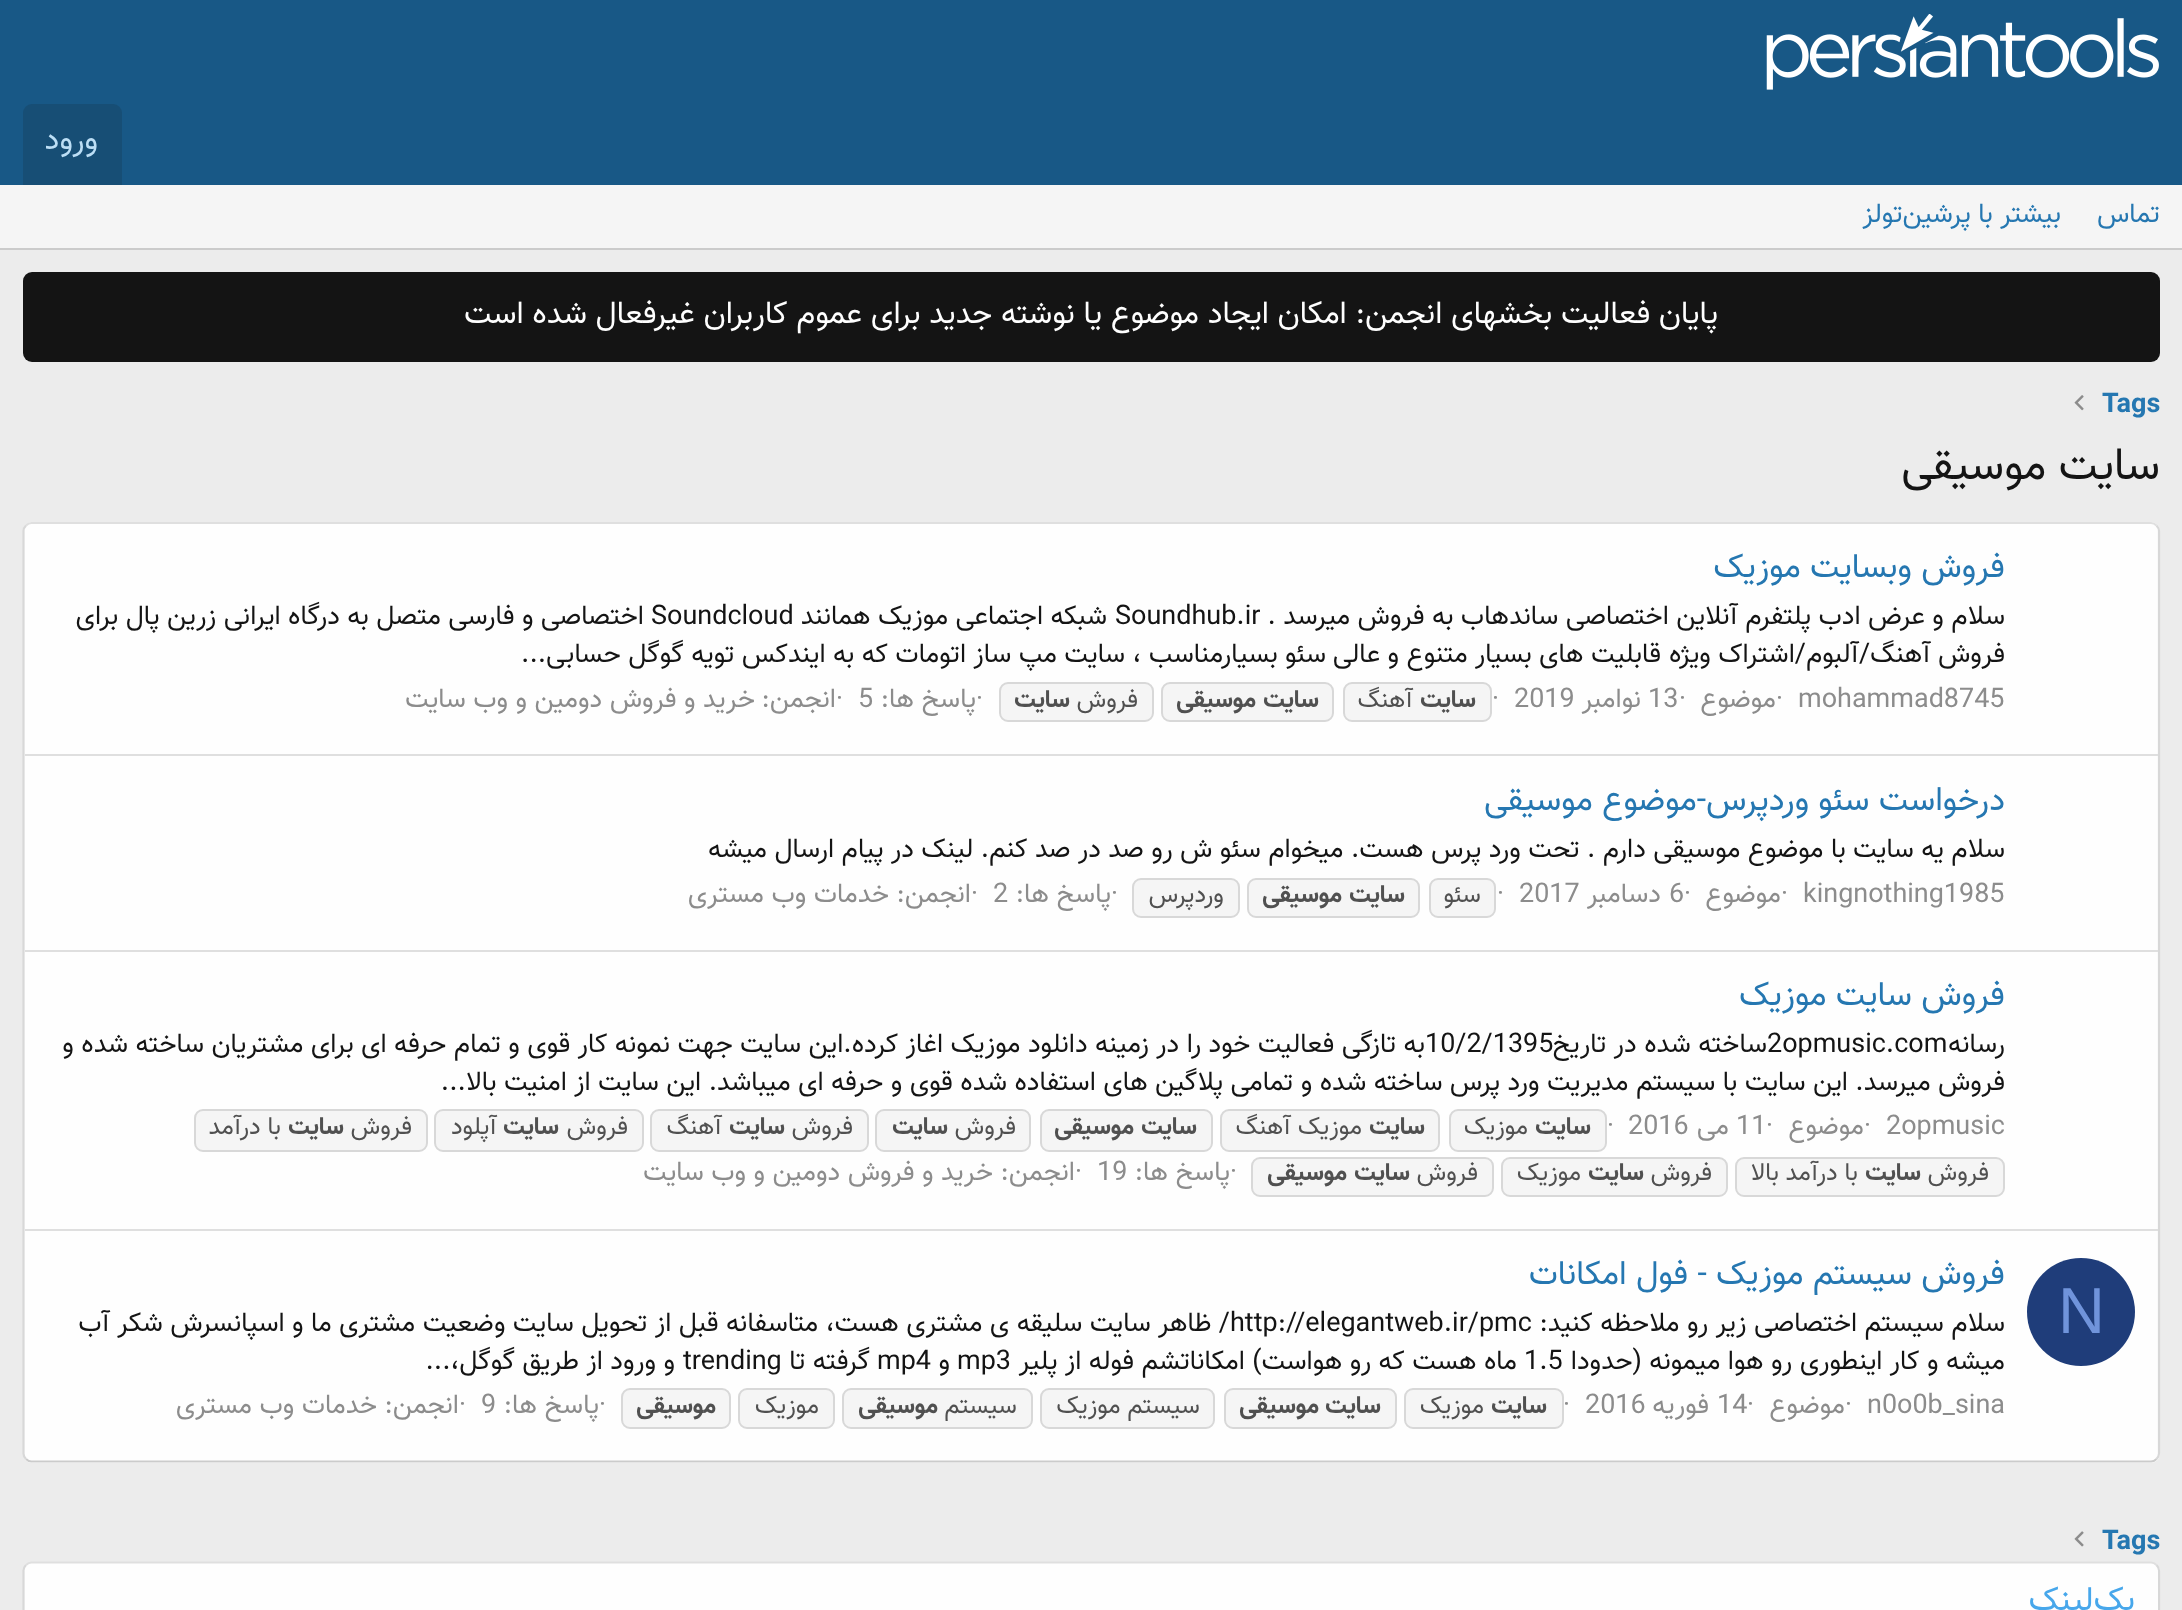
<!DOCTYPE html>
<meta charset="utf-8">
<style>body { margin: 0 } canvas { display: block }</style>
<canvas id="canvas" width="2182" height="1610"></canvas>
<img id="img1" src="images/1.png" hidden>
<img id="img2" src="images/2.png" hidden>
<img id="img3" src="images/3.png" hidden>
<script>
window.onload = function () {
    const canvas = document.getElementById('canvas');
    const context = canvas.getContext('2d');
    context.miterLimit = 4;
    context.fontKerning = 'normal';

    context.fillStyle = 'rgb(236, 236, 236)';
    context.fillRect(0, 0, 2182, 1610);
    context.fillStyle = 'rgb(24, 88, 134)';
    context.fillRect(0, 0, 2182, 185);
    context.drawImage(document.getElementById('img1'), 1766, 14, 393, 76);
    context.fillStyle = 'rgb(23, 78, 117)';
    context.beginPath();
    context.roundRect(23, 104, 99, 81, [9, 9, 0, 0]);
    context.fill();
    context.fillStyle = 'rgb(245, 245, 245)';
    context.fillRect(0, 185, 2182, 63);
    context.fillStyle = 'rgb(203, 203, 203)';
    context.fillRect(0, 248, 2182, 2);
    context.fillStyle = 'rgb(20, 20, 20)';
    context.beginPath();
    context.roundRect(23, 272, 2137, 90, 9);
    context.fill();
    context.drawImage(document.getElementById('img2'), 2074, 395, 10, 16);
    context.fillStyle = 'rgb(254, 254, 254)';
    context.beginPath();
    context.roundRect(23, 522, 2137, 941, 9);
    context.fill();
    context.beginPath();
    context.moveTo(26, 525.5);
    context.bezierCurveTo(27.5, 524, 29.5, 523, 31.5, 523);
    context.lineTo(2151, 523);
    context.bezierCurveTo(2153, 523, 2155, 524, 2156.5, 525.5);
    context.strokeStyle = 'rgb(223, 223, 223)';
    context.lineWidth = 2.2;
    context.stroke();
    context.beginPath();
    context.moveTo(2156.5, 525.5);
    context.bezierCurveTo(2158, 527, 2159, 529, 2159, 531);
    context.lineTo(2159, 1453.5);
    context.bezierCurveTo(2159, 1455.5, 2158, 1457.5, 2156.5, 1459);
    context.strokeStyle = 'rgb(216, 216, 216)';
    context.stroke();
    context.beginPath();
    context.moveTo(2156.5, 1459);
    context.bezierCurveTo(2155, 1460.5, 2153, 1461.5, 2151, 1461.5);
    context.lineTo(31.5, 1461.5);
    context.bezierCurveTo(29.5, 1461.5, 27.5, 1460.5, 26, 1459);
    context.strokeStyle = 'rgb(203, 203, 203)';
    context.stroke();
    context.beginPath();
    context.moveTo(26, 1459);
    context.bezierCurveTo(24.5, 1457.5, 23.5, 1455.5, 23.5, 1453.5);
    context.lineTo(23.5, 531);
    context.bezierCurveTo(23.5, 529, 24.5, 527, 26, 525.5);
    context.strokeStyle = 'rgb(216, 216, 216)';
    context.stroke();
    context.fillStyle = 'rgb(245, 245, 245)';
    context.beginPath();
    context.roundRect(1344, 683, 147, 38, 8);
    context.fill();
    context.lineWidth = 2;
    context.stroke();
    context.beginPath();
    context.roundRect(1162, 683, 171, 38, 8);
    context.fill();
    context.stroke();
    context.beginPath();
    context.roundRect(1000, 683, 153, 38, 8);
    context.fill();
    context.stroke();
    context.fillStyle = 'rgb(223, 223, 223)';
    context.fillRect(25, 754, 2133, 2);
    context.fillStyle = 'rgb(245, 245, 245)';
    context.beginPath();
    context.roundRect(1430, 879, 65, 38, 8);
    context.fill();
    context.stroke();
    context.beginPath();
    context.roundRect(1248, 879, 171, 38, 8);
    context.fill();
    context.stroke();
    context.beginPath();
    context.roundRect(1133, 879, 106, 38, 8);
    context.fill();
    context.stroke();
    context.fillStyle = 'rgb(223, 223, 223)';
    context.fillRect(25, 950, 2133, 2);
    context.fillStyle = 'rgb(245, 245, 245)';
    context.beginPath();
    context.roundRect(1450, 1110, 156, 41, 8);
    context.fill();
    context.stroke();
    context.beginPath();
    context.roundRect(1221, 1110, 218, 41, 8);
    context.fill();
    context.stroke();
    context.beginPath();
    context.roundRect(1041, 1110, 171, 41, 8);
    context.fill();
    context.stroke();
    context.beginPath();
    context.roundRect(876, 1110, 154, 41, 8);
    context.fill();
    context.stroke();
    context.beginPath();
    context.roundRect(651, 1110, 217, 41, 8);
    context.fill();
    context.stroke();
    context.beginPath();
    context.roundRect(435, 1110, 208, 41, 8);
    context.fill();
    context.stroke();
    context.beginPath();
    context.roundRect(195, 1110, 232, 41, 8);
    context.fill();
    context.stroke();
    context.beginPath();
    context.roundRect(1736, 1158, 268, 38, 8);
    context.fill();
    context.stroke();
    context.beginPath();
    context.roundRect(1502, 1158, 225, 38, 8);
    context.fill();
    context.stroke();
    context.beginPath();
    context.roundRect(1252, 1158, 241, 38, 8);
    context.fill();
    context.stroke();
    context.fillStyle = 'rgb(223, 223, 223)';
    context.fillRect(25, 1229, 2133, 2);
    context.fillStyle = 'rgb(31, 61, 122)';
    context.beginPath();
    context.arc(2081, 1312, 54, 0, 2 * Math.PI);
    context.fill();
    context.fillStyle = 'rgb(245, 245, 245)';
    context.beginPath();
    context.roundRect(1405, 1389, 158, 39, 8);
    context.fill();
    context.stroke();
    context.beginPath();
    context.roundRect(1225, 1389, 171, 39, 8);
    context.fill();
    context.stroke();
    context.beginPath();
    context.roundRect(1041, 1389, 173, 39, 8);
    context.fill();
    context.stroke();
    context.beginPath();
    context.roundRect(843, 1389, 189, 39, 8);
    context.fill();
    context.stroke();
    context.beginPath();
    context.roundRect(739, 1389, 95, 39, 8);
    context.fill();
    context.stroke();
    context.beginPath();
    context.roundRect(622, 1389, 108, 39, 8);
    context.fill();
    context.stroke();
    context.drawImage(document.getElementById('img3'), 2074, 1531, 10, 16);
    context.fillStyle = 'rgb(254, 254, 254)';
    context.beginPath();
    context.roundRect(23, 1562, 2137, 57, 9);
    context.fill();
    context.beginPath();
    context.moveTo(26, 1565);
    context.bezierCurveTo(27.5, 1563.5, 29.5, 1562.5, 31.5, 1562.5);
    context.lineTo(2151, 1562.5);
    context.bezierCurveTo(2153, 1562.5, 2155, 1563.5, 2156.5, 1565);
    context.strokeStyle = 'rgb(223, 223, 223)';
    context.lineWidth = 2.2;
    context.stroke();
    context.beginPath();
    context.moveTo(2156.5, 1565);
    context.bezierCurveTo(2158, 1566.5, 2159, 1568.5, 2159, 1570.5);
    context.lineTo(2159, 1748);
    context.bezierCurveTo(2159, 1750.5, 2158, 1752.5, 2156.5, 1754);
    context.strokeStyle = 'rgb(216, 216, 216)';
    context.stroke();
    context.beginPath();
    context.moveTo(26, 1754);
    context.bezierCurveTo(24.5, 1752.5, 23.5, 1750.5, 23.5, 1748);
    context.lineTo(23.5, 1570.5);
    context.bezierCurveTo(23.5, 1568.5, 24.5, 1566.5, 26, 1565);
    context.stroke();
    context.beginPath();
    context.roundRect(25, 1564, 2133, 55, 9);
    context.fill();
    context.direction = 'rtl';
    context.font = '31.5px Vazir';
    context.fillStyle = 'rgb(188, 222, 245)';
    context.fillText('ورود', 98, 149);
    context.font = '27px Vazir';
    context.fillStyle = 'rgb(37, 119, 177)';
    context.fillText('تماس', 2160, 222);
    context.fillText('بیشتر با پرشین‌تولز', 2061, 222);
    context.font = '31.5px Vazir';
    context.fillStyle = 'rgb(254, 254, 254)';
    context.fillText('پایان فعالیت بخشهای انجمن: امکان ایجاد موضوع یا نوشته جدید برای عموم کاربران غیرفعال شده است', 1718, 323);
    context.direction = 'ltr';
    context.font = 'bold 27px Vazir';
    context.fillStyle = 'rgb(37, 119, 177)';
    context.fillText('Tags', 2102, 412);
    context.direction = 'rtl';
    context.font = '45px Vazir';
    context.fillStyle = 'rgb(20, 20, 20)';
    context.fillText('سایت موسیقی', 2160, 479);
    context.font = '33.75px Vazir';
    context.fillStyle = 'rgb(37, 119, 177)';
    context.fillText('فروش وبسایت موزیک', 2005, 577);
    context.font = '27px Vazir';
    context.fillStyle = 'rgb(20, 20, 20)';
    context.fillText('سلام و عرض ادب', 2005, 624);
    context.fillText('پلتفرم آنلاین اختصاصی ساندهاب به فروش میرسد .', 1811, 624);
    context.direction = 'ltr';
    context.fillText('Soundhub.ir', 1115, 624);
    context.direction = 'rtl';
    context.fillText('شبکه اجتماعی موزیک همانند', 1107, 624);
    context.direction = 'ltr';
    context.fillText('Soundcloud', 651, 624);
    context.direction = 'rtl';
    context.fillText('اختصاصی و فارسی', 644, 624);
    context.fillText('متصل به درگاه ایرانی زرین پال برای', 441, 624);
    context.fillText('فروش آهنگ/آلبوم/اشتراک ویژه', 2005, 662);
    context.fillText('قابلیت های بسیار متنوع و عالی', 1661, 662);
    context.fillText('سئو بسیارمناسب ، سایت مپ ساز اتومات که به ایندکس تویه گوگل حسابی...', 1326, 662);
    context.direction = 'ltr';
    context.fillStyle = 'rgb(140, 140, 140)';
    context.fillText('mohammad8745', 1798, 707);
    context.fillText('·', 1776, 707);
    context.direction = 'rtl';
    context.fillText('موضوع', 1776, 707);
    context.direction = 'ltr';
    context.fillText('·', 1679, 707);
    context.fillText('13', 1648, 707);
    context.direction = 'rtl';
    context.fillText('نوامبر', 1641, 707);
    context.direction = 'ltr';
    context.fillText('2019', 1514, 707);
    context.fillText('·', 1492, 707);
    context.direction = 'rtl';
    context.font = 'bold 24.75px Vazir';
    context.fillStyle = 'rgb(80, 80, 80)';
    context.fillText('سایت', 1476, 707);
    context.font = '24.75px Vazir';
    context.fillText('آهنگ', 1413, 707);
    context.font = 'bold 24.75px Vazir';
    context.fillText('سایت', 1319, 707);
    context.fillText('موسیقی', 1256, 707);
    context.font = '24.75px Vazir';
    context.fillText('فروش', 1138, 707);
    context.font = 'bold 24.75px Vazir';
    context.fillText('سایت', 1070, 707);
    context.direction = 'ltr';
    context.font = '27px Vazir';
    context.fillStyle = 'rgb(140, 140, 140)';
    context.fillText('·', 976, 707);
    context.direction = 'rtl';
    context.fillText('پاسخ ها:', 976, 707);
    context.direction = 'ltr';
    context.fillText('5', 858, 707);
    context.fillText('·', 836, 707);
    context.direction = 'rtl';
    context.fillText('انجمن:', 836, 707);
    context.fillText('خرید و فروش دومین و وب سایت', 755, 707);
    context.font = '33.75px Vazir';
    context.fillStyle = 'rgb(37, 119, 177)';
    context.fillText('درخواست سئو وردپرس-موضوع موسیقی', 2005, 810);
    context.font = '27px Vazir';
    context.fillStyle = 'rgb(20, 20, 20)';
    context.fillText('سلام یه سایت با موضوع موسیقی دارم . تحت ورد پرس هست. میخوام سئو ش رو صد در صد کنم. لینک در پیام ارسال میشه', 2005, 857);
    context.direction = 'ltr';
    context.fillStyle = 'rgb(140, 140, 140)';
    context.fillText('kingnothing1985', 1803, 902);
    context.fillText('·', 1781, 902);
    context.direction = 'rtl';
    context.fillText('موضوع', 1781, 902);
    context.direction = 'ltr';
    context.fillText('·', 1684, 902);
    context.fillText('6', 1669, 902);
    context.direction = 'rtl';
    context.fillText('دسامبر', 1661, 902);
    context.direction = 'ltr';
    context.fillText('2017', 1519, 902);
    context.fillText('·', 1497, 902);
    context.direction = 'rtl';
    context.font = '24.75px Vazir';
    context.fillStyle = 'rgb(80, 80, 80)';
    context.fillText('سئو', 1481, 902);
    context.font = 'bold 24.75px Vazir';
    context.fillText('سایت', 1405, 902);
    context.fillText('موسیقی', 1342, 902);
    context.font = '24.75px Vazir';
    context.fillText('وردپرس', 1224, 902);
    context.direction = 'ltr';
    context.font = '27px Vazir';
    context.fillStyle = 'rgb(140, 140, 140)';
    context.fillText('·', 1111, 902);
    context.direction = 'rtl';
    context.fillText('پاسخ ها:', 1111, 902);
    context.direction = 'ltr';
    context.fillText('2', 993, 902);
    context.fillText('·', 971, 902);
    context.direction = 'rtl';
    context.fillText('انجمن:', 971, 902);
    context.fillText('خدمات وب مستری', 889, 902);
    context.font = '33.75px Vazir';
    context.fillStyle = 'rgb(37, 119, 177)';
    context.fillText('فروش سایت موزیک', 2005, 1005);
    context.font = '27px Vazir';
    context.fillStyle = 'rgb(20, 20, 20)';
    context.fillText('رسانه', 2005, 1052);
    context.direction = 'ltr';
    context.fillText('2opmusic.com', 1767, 1052);
    context.direction = 'rtl';
    context.fillText('ساخته شده در تاریخ', 1767, 1052);
    context.direction = 'ltr';
    context.fillText('10/2/1395', 1425, 1052);
    context.direction = 'rtl';
    context.fillText('به تازگی فعالیت خود را در زمینه دانلود موزیک اغاز کرده.این سایت جهت نمونه کار قوی و تمام حرفه ای برای مشتریان ساخته شده و', 1425, 1052);
    context.fillText('فروش میرسد. این سایت با سیستم مدیریت ورد پرس ساخته شده و تمامی پلاگین های استفاده شده قوی و حرفه ای میباشد. این سایت از امنیت بالا...', 2005, 1090);
    context.direction = 'ltr';
    context.fillStyle = 'rgb(140, 140, 140)';
    context.fillText('·', 1607, 1134);
    context.direction = 'rtl';
    context.font = 'bold 24.75px Vazir';
    context.fillStyle = 'rgb(80, 80, 80)';
    context.fillText('سایت', 1591, 1134);
    context.font = '24.75px Vazir';
    context.fillText('موزیک', 1528, 1134);
    context.font = 'bold 24.75px Vazir';
    context.fillText('سایت', 1425, 1134);
    context.font = '24.75px Vazir';
    context.fillText('موزیک آهنگ', 1362, 1134);
    context.font = 'bold 24.75px Vazir';
    context.fillText('سایت', 1197, 1134);
    context.fillText('موسیقی', 1134, 1134);
    context.font = '24.75px Vazir';
    context.fillText('فروش', 1016, 1134);
    context.font = 'bold 24.75px Vazir';
    context.fillText('سایت', 948, 1134);
    context.font = '24.75px Vazir';
    context.fillText('فروش', 853, 1134);
    context.font = 'bold 24.75px Vazir';
    context.fillText('سایت', 785, 1134);
    context.font = '24.75px Vazir';
    context.fillText('آهنگ', 722, 1134);
    context.fillText('فروش', 628, 1134);
    context.font = 'bold 24.75px Vazir';
    context.fillText('سایت', 559, 1134);
    context.font = '24.75px Vazir';
    context.fillText('آپلود', 497, 1134);
    context.fillText('فروش', 412, 1134);
    context.font = 'bold 24.75px Vazir';
    context.fillText('سایت', 344, 1134);
    context.font = '24.75px Vazir';
    context.fillText('با درآمد', 281, 1134);
    context.fillText('فروش', 1989, 1180);
    context.font = 'bold 24.75px Vazir';
    context.fillText('سایت', 1921, 1180);
    context.font = '24.75px Vazir';
    context.fillText('با درآمد بالا', 1858, 1180);
    context.fillText('فروش', 1712, 1180);
    context.font = 'bold 24.75px Vazir';
    context.fillText('سایت', 1644, 1180);
    context.font = '24.75px Vazir';
    context.fillText('موزیک', 1581, 1180);
    context.fillText('فروش', 1478, 1180);
    context.font = 'bold 24.75px Vazir';
    context.fillText('سایت', 1410, 1180);
    context.fillText('موسیقی', 1347, 1180);
    context.direction = 'ltr';
    context.font = '27px Vazir';
    context.fillStyle = 'rgb(140, 140, 140)';
    context.fillText('2opmusic', 1886, 1134);
    context.fillText('·', 1864, 1134);
    context.direction = 'rtl';
    context.fillText('موضوع', 1864, 1134);
    context.direction = 'ltr';
    context.fillText('·', 1766, 1134);
    context.fillText('11', 1736, 1134);
    context.direction = 'rtl';
    context.fillText('می', 1729, 1134);
    context.direction = 'ltr';
    context.fillText('2016', 1628, 1134);
    context.fillText('·', 1230, 1180);
    context.direction = 'rtl';
    context.fillText('پاسخ ها:', 1230, 1180);
    context.direction = 'ltr';
    context.fillText('19', 1097, 1180);
    context.fillText('·', 1075, 1180);
    context.direction = 'rtl';
    context.fillText('انجمن:', 1075, 1180);
    context.fillText('خرید و فروش دومین و وب سایت', 993, 1180);
    context.direction = 'ltr';
    context.font = '65px Liberation Sans';
    context.fillStyle = 'rgb(112, 148, 219)';
    context.fillText('N', 2058, 1333);
    context.direction = 'rtl';
    context.font = '33.75px Vazir';
    context.fillStyle = 'rgb(37, 119, 177)';
    context.fillText('فروش سیستم موزیک - فول امکانات', 2005, 1284);
    context.font = '27px Vazir';
    context.fillStyle = 'rgb(20, 20, 20)';
    context.fillText('سلام سیستم اختصاصی زیر رو ملاحظه کنید:', 2005, 1331);
    context.direction = 'ltr';
    context.fillText('http://elegantweb.ir/pmc', 1230, 1331);
    context.direction = 'rtl';
    context.fillText('/ ظاهر سایت سلیقه ی مشتری هست، متاسفانه قبل از تحویل سایت وضعیت مشتری ما و اسپانسرش شکر آب', 1230, 1331);
    context.fillText('میشه و کار اینطوری رو هوا میمونه (حدودا', 2005, 1369);
    context.direction = 'ltr';
    context.fillText('1.5', 1524, 1369);
    context.direction = 'rtl';
    context.fillText('ماه هست که رو هواست) امکاناتشم فوله از پلیر', 1517, 1369);
    context.direction = 'ltr';
    context.fillText('mp3', 957, 1369);
    context.direction = 'rtl';
    context.fillText('و', 950, 1369);
    context.direction = 'ltr';
    context.fillText('mp4', 877, 1369);
    context.direction = 'rtl';
    context.fillText('گرفته تا', 870, 1369);
    context.direction = 'ltr';
    context.fillText('trending', 683, 1369);
    context.direction = 'rtl';
    context.fillText('و ورود از طریق گوگل،...', 675, 1369);
    context.direction = 'ltr';
    context.fillStyle = 'rgb(140, 140, 140)';
    context.fillText('n0o0b_sina', 1867, 1413);
    context.fillText('·', 1845, 1413);
    context.direction = 'rtl';
    context.fillText('موضوع', 1845, 1413);
    context.direction = 'ltr';
    context.fillText('·', 1747, 1413);
    context.fillText('14', 1717, 1413);
    context.direction = 'rtl';
    context.fillText('فوریه', 1709, 1413);
    context.direction = 'ltr';
    context.fillText('2016', 1585, 1413);
    context.fillText('·', 1563, 1413);
    context.direction = 'rtl';
    context.font = 'bold 24.75px Vazir';
    context.fillStyle = 'rgb(80, 80, 80)';
    context.fillText('سایت', 1547, 1413);
    context.font = '24.75px Vazir';
    context.fillText('موزیک', 1484, 1413);
    context.font = 'bold 24.75px Vazir';
    context.fillText('سایت', 1381, 1413);
    context.fillText('موسیقی', 1319, 1413);
    context.font = '24.75px Vazir';
    context.fillText('سیستم موزیک', 1200, 1413);
    context.fillText('سیستم', 1017, 1413);
    context.font = 'bold 24.75px Vazir';
    context.fillText('موسیقی', 938, 1413);
    context.font = '24.75px Vazir';
    context.fillText('موزیک', 819, 1413);
    context.font = 'bold 24.75px Vazir';
    context.fillText('موسیقی', 716, 1413);
    context.direction = 'ltr';
    context.font = '27px Vazir';
    context.fillStyle = 'rgb(140, 140, 140)';
    context.fillText('·', 599, 1413);
    context.direction = 'rtl';
    context.fillText('پاسخ ها:', 599, 1413);
    context.direction = 'ltr';
    context.fillText('9', 481, 1413);
    context.fillText('·', 459, 1413);
    context.direction = 'rtl';
    context.fillText('انجمن:', 459, 1413);
    context.fillText('خدمات وب مستری', 377, 1413);
    context.direction = 'ltr';
    context.font = 'bold 27px Vazir';
    context.fillStyle = 'rgb(37, 119, 177)';
    context.fillText('Tags', 2102, 1549);
    context.direction = 'rtl';
    context.font = '33.75px Vazir';
    context.fillStyle = 'rgb(71, 167, 235)';
    context.fillText('بک‌لینک', 2135, 1610);
};
</script>
